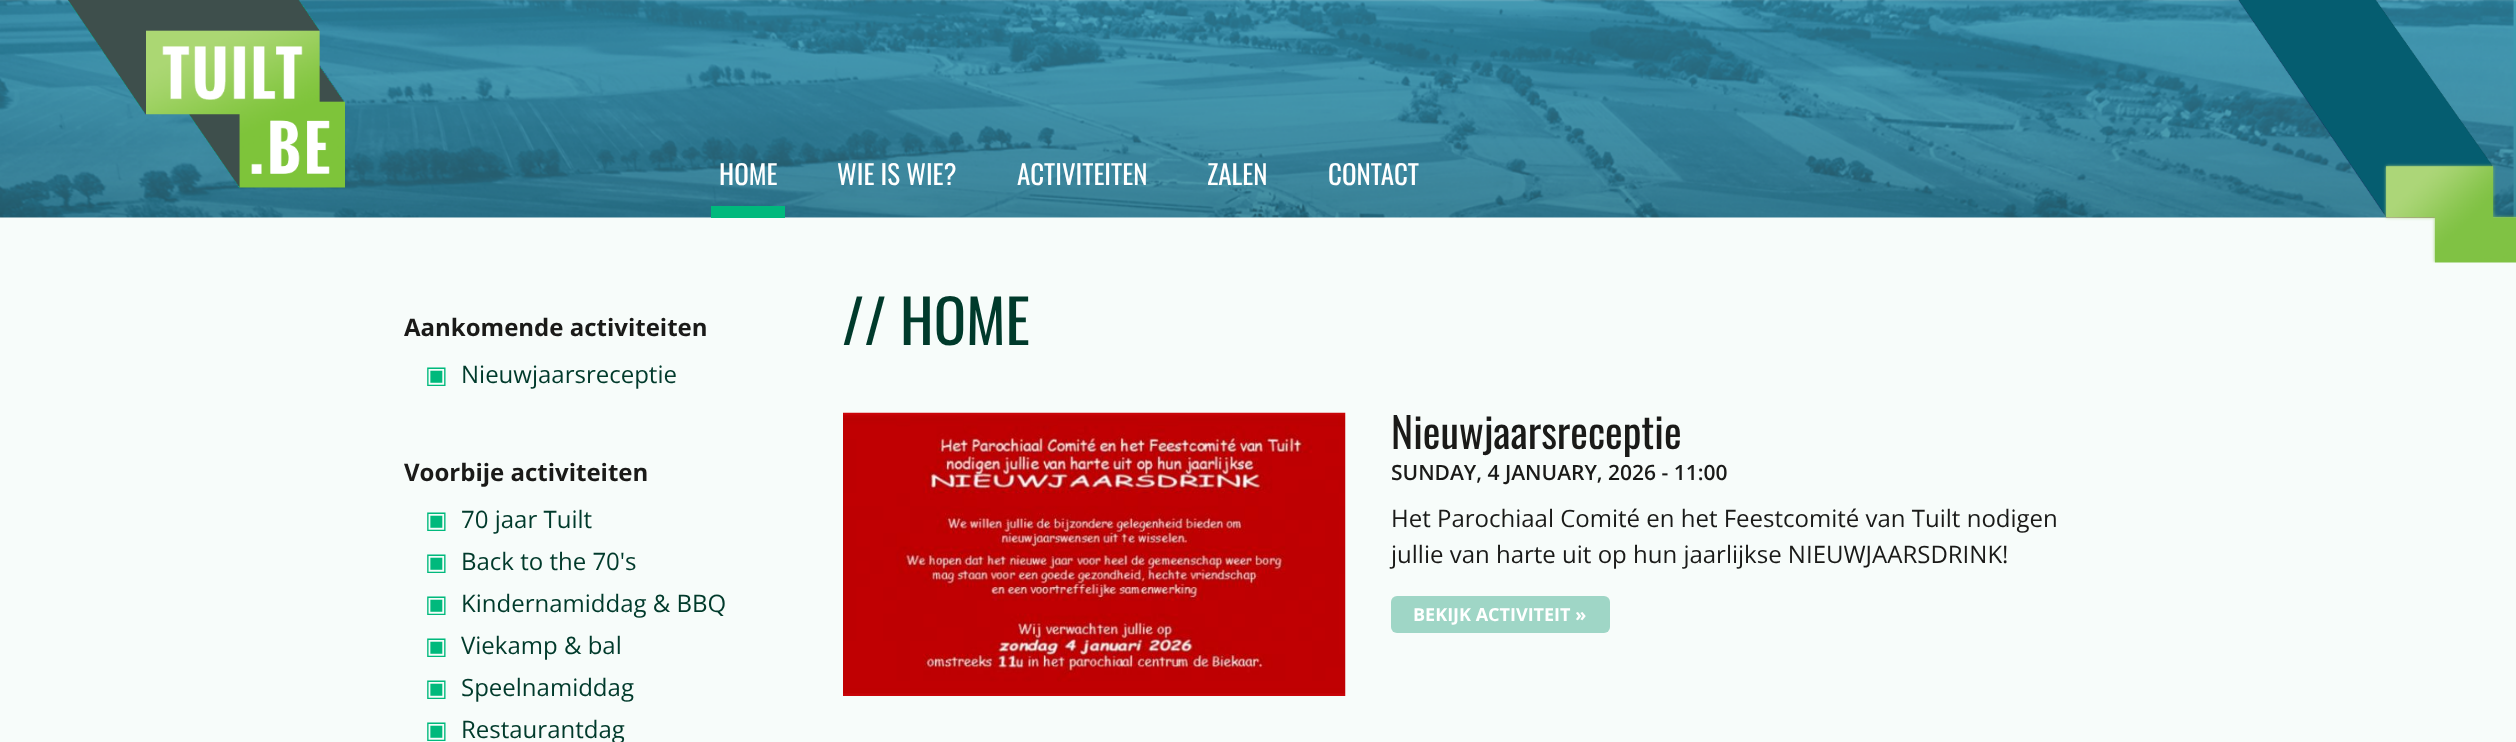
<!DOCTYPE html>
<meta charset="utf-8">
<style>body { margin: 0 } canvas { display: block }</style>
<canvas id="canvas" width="2516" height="742"></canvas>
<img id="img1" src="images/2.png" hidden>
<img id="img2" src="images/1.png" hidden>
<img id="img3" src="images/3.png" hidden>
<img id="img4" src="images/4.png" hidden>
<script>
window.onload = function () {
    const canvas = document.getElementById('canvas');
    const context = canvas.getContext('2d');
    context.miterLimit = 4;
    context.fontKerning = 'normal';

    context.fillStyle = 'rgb(247, 252, 250)';
    context.fillRect(0, 0, 2516, 742);
    context.fillStyle = 'rgb(255, 255, 255)';
    context.fillRect(0, 217, 2516, 1);
    context.drawImage(document.getElementById('img1'), 0, 0, 2516, 218);
    context.drawImage(document.getElementById('img2'), 67, 0, 278, 188);
    context.fillStyle = 'rgb(0, 185, 124)';
    context.fillRect(711, 206, 74, 12);
    context.drawImage(document.getElementById('img3'), 2238, 0, 278, 263);
    context.drawImage(document.getElementById('img4'), 843, 412, 503, 284);
    context.fillStyle = 'rgb(159, 214, 198)';
    context.beginPath();
    context.roundRect(1391, 596, 219, 37, 6);
    context.fill();
    context.font = '27px Oswald';
    context.fillStyle = 'rgb(255, 255, 255)';
    context.fillText('HOME', 719, 185);
    context.fillText('WIE IS WIE?', 837, 185);
    context.fillText('ACTIVITEITEN', 1017, 185);
    context.fillText('ZALEN', 1207, 185);
    context.fillText('CONTACT', 1328, 185);
    context.font = 'bold 24px Open Sans';
    context.fillStyle = 'rgb(26, 26, 24)';
    context.fillText('Aankomende activiteiten', 404, 336);
    context.font = '24px DejaVu Sans';
    context.fillStyle = 'rgb(0, 185, 124)';
    context.fillText('▣', 425, 383);
    context.font = '24px Open Sans';
    context.fillStyle = 'rgb(0, 58, 43)';
    context.fillText('Nieuwjaarsreceptie', 461, 383);
    context.font = 'bold 24px Open Sans';
    context.fillStyle = 'rgb(26, 26, 24)';
    context.fillText('Voorbije activiteiten', 404, 481);
    context.font = '24px DejaVu Sans';
    context.fillStyle = 'rgb(0, 185, 124)';
    context.fillText('▣', 425, 528);
    context.font = '24px Open Sans';
    context.fillStyle = 'rgb(0, 58, 43)';
    context.fillText('70 jaar Tuilt', 461, 528);
    context.font = '24px DejaVu Sans';
    context.fillStyle = 'rgb(0, 185, 124)';
    context.fillText('▣', 425, 570);
    context.font = '24px Open Sans';
    context.fillStyle = 'rgb(0, 58, 43)';
    context.fillText('Back to the 70\'s', 461, 570);
    context.font = '24px DejaVu Sans';
    context.fillStyle = 'rgb(0, 185, 124)';
    context.fillText('▣', 425, 612);
    context.font = '24px Open Sans';
    context.fillStyle = 'rgb(0, 58, 43)';
    context.fillText('Kindernamiddag & BBQ', 461, 612);
    context.font = '24px DejaVu Sans';
    context.fillStyle = 'rgb(0, 185, 124)';
    context.fillText('▣', 425, 654);
    context.font = '24px Open Sans';
    context.fillStyle = 'rgb(0, 58, 43)';
    context.fillText('Viekamp & bal', 461, 654);
    context.font = '24px DejaVu Sans';
    context.fillStyle = 'rgb(0, 185, 124)';
    context.fillText('▣', 425, 696);
    context.font = '24px Open Sans';
    context.fillStyle = 'rgb(0, 58, 43)';
    context.fillText('Speelnamiddag', 461, 696);
    context.font = '24px DejaVu Sans';
    context.fillStyle = 'rgb(0, 185, 124)';
    context.fillText('▣', 425, 738);
    context.font = '24px Open Sans';
    context.fillStyle = 'rgb(0, 58, 43)';
    context.fillText('Restaurantdag', 461, 738);
    context.font = '60px Oswald';
    context.fillText('// HOME', 842, 345);
    context.font = '42px Oswald';
    context.fillStyle = 'rgb(26, 26, 24)';
    context.fillText('Nieuwjaarsreceptie', 1391, 449);
    context.font = '600 21px Open Sans';
    context.fillText('SUNDAY, 4 JANUARY, 2026 - 11:00', 1391, 480);
    context.font = '24px Open Sans';
    context.fillText('Het Parochiaal Comité en het Feestcomité van Tuilt nodigen', 1391, 527);
    context.fillText('jullie van harte uit op hun jaarlijkse NIEUWJAARSDRINK!', 1391, 563);
    context.font = 'bold 18px Open Sans';
    context.fillStyle = 'rgb(255, 255, 255)';
    context.fillText('BEKIJK ACTIVITEIT »', 1413, 621);
};
</script>
